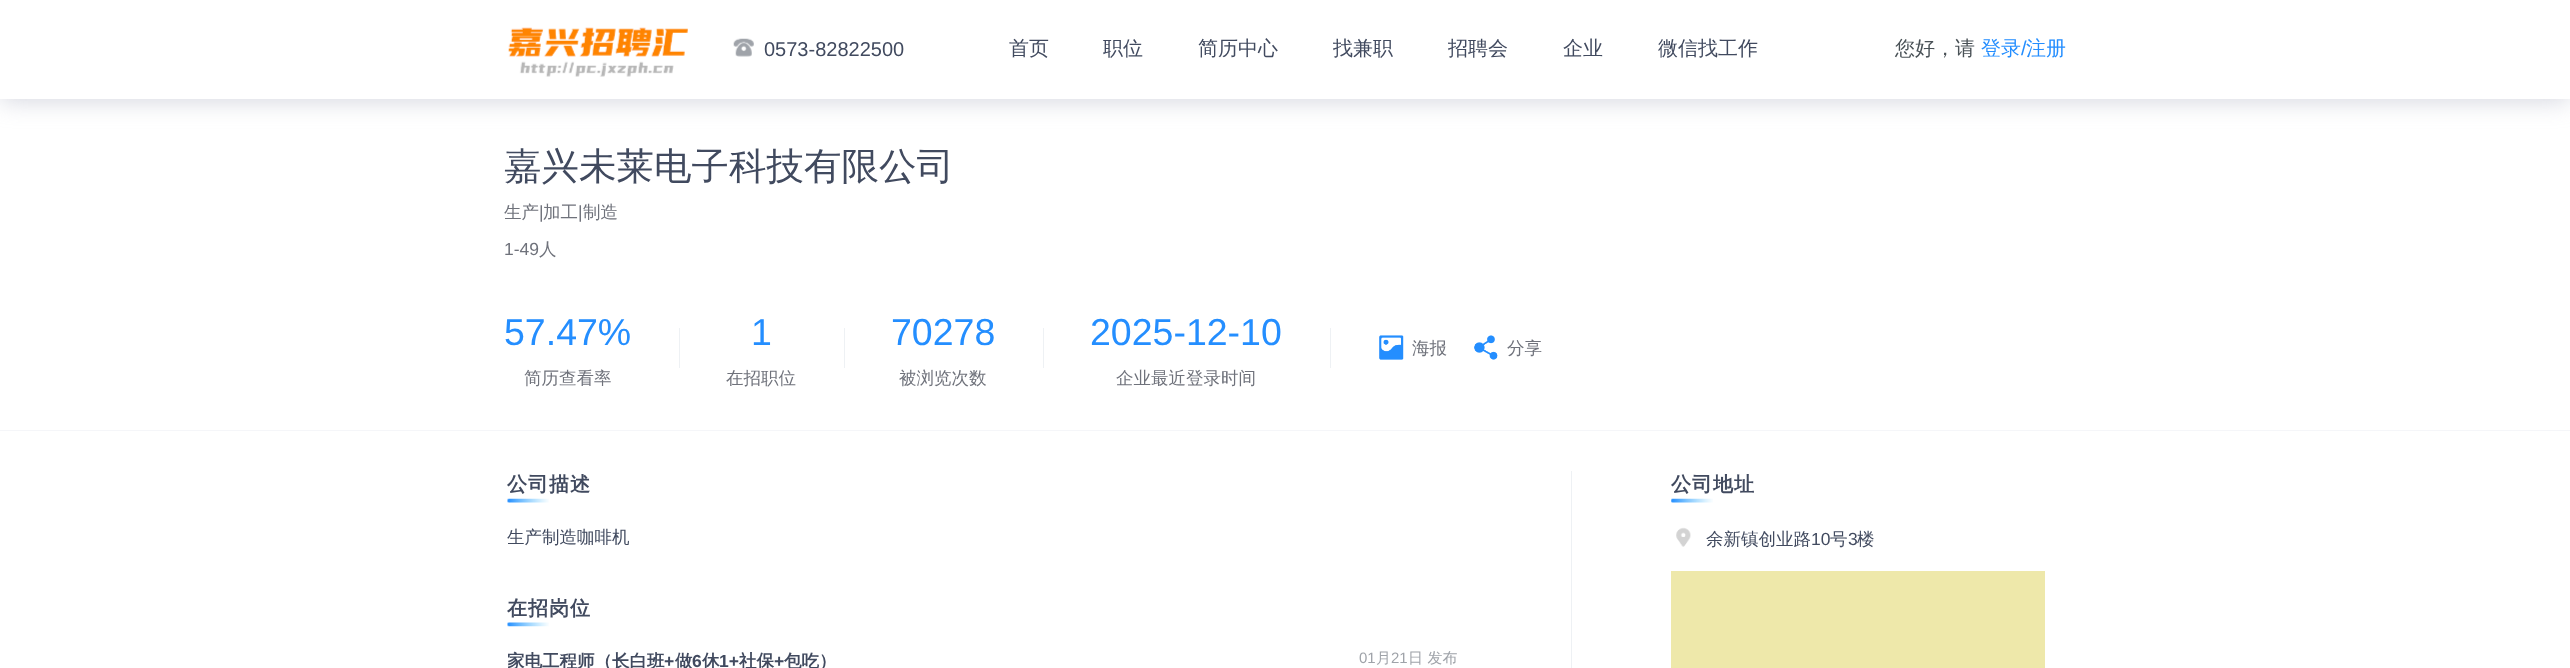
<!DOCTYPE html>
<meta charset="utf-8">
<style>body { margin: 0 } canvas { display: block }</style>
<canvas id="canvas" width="2570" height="668"></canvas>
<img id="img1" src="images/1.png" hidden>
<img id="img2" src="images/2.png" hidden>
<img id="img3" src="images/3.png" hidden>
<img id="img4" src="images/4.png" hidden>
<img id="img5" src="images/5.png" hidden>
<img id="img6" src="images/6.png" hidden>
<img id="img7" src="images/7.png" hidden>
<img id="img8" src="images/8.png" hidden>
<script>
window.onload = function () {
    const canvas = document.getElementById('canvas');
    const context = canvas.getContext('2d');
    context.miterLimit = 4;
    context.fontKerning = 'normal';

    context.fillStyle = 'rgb(255, 255, 255)';
    context.fillRect(0, 0, 2570, 668);
    context.fillStyle = 'rgba(170, 173, 191, 0.5)';
    context.filter = 'blur(12.5px)';
    context.beginPath();
    context.rect(0, 3, 2570, 98);
    context.fill();
    context.filter = 'none';
    context.fillStyle = 'rgb(255, 255, 255)';
    context.fillRect(0, 0, 2570, 99);
    context.drawImage(document.getElementById('img1'), 508, 27, 180, 50);
    context.drawImage(document.getElementById('img2'), 733, 38, 21, 19);
    context.fillStyle = 'rgb(245, 246, 249)';
    context.fillRect(0, 430, 2570, 1);
    context.fillStyle = 'rgb(238, 241, 244)';
    context.fillRect(679, 328, 1, 40);
    context.fillRect(844, 328, 1, 40);
    context.fillRect(1043, 328, 1, 40);
    context.fillRect(1330, 328, 1, 40);
    context.drawImage(document.getElementById('img3'), 1379, 335, 25, 25);
    context.drawImage(document.getElementById('img4'), 1474, 335, 24, 25);
    context.drawImage(document.getElementById('img5'), 507, 498, 42, 5);
    context.fillRect(1571, 471, 1, 197);
    context.drawImage(document.getElementById('img6'), 507, 622, 42, 5);
    context.drawImage(document.getElementById('img7'), 1671, 498, 42, 5);
    context.drawImage(document.getElementById('img8'), 1676, 527, 15, 20);
    context.fillStyle = 'rgb(238, 232, 170)';
    context.fillRect(1671, 571, 374, 97);
    context.font = '20px Liberation Sans';
    context.fillStyle = 'rgb(65, 74, 95)';
    context.fillText('0573-82822500', 764, 56);
    context.font = '500 20px WenQuanYi Zen Hei';
    context.fillText('首页', 1009, 55);
    context.fillText('职位', 1103, 55);
    context.fillText('简历中心', 1198, 55);
    context.fillText('找兼职', 1333, 55);
    context.fillText('招聘会', 1448, 55);
    context.fillText('企业', 1563, 55);
    context.fillText('微信找工作', 1658, 55);
    context.fillStyle = 'rgb(73, 81, 86)';
    context.fillText('您好，请', 1895, 55);
    context.fillStyle = 'rgb(36, 142, 255)';
    context.fillText('登录', 1981, 55);
    context.font = '20px Liberation Sans';
    context.fillText('/', 2021, 55);
    context.font = '500 20px WenQuanYi Zen Hei';
    context.fillText('注册', 2026, 55);
    context.font = '500 37.5px WenQuanYi Zen Hei';
    context.fillStyle = 'rgb(65, 74, 95)';
    context.fillText('嘉兴未莱电子科技有限公司', 504, 179);
    context.font = '500 17.5px WenQuanYi Zen Hei';
    context.fillStyle = 'rgb(111, 114, 123)';
    context.fillText('生产', 504, 218);
    context.font = '17.5px Liberation Sans';
    context.fillText('|', 539, 218);
    context.font = '500 17.5px WenQuanYi Zen Hei';
    context.fillText('加工', 543, 218);
    context.font = '17.5px Liberation Sans';
    context.fillText('|', 578, 218);
    context.font = '500 17.5px WenQuanYi Zen Hei';
    context.fillText('制造', 583, 218);
    context.font = '17.5px Liberation Sans';
    context.fillText('1-49', 504, 255);
    context.font = '500 17.5px WenQuanYi Zen Hei';
    context.fillText('人', 539, 255);
    context.font = '37.5px Liberation Sans';
    context.fillStyle = 'rgb(36, 142, 255)';
    context.fillText('57.47%', 504, 345);
    context.font = '500 17.5px WenQuanYi Zen Hei';
    context.fillStyle = 'rgb(111, 114, 123)';
    context.fillText('简历查看率', 524, 384);
    context.font = '37.5px Liberation Sans';
    context.fillStyle = 'rgb(36, 142, 255)';
    context.fillText('1', 751, 345);
    context.font = '500 17.5px WenQuanYi Zen Hei';
    context.fillStyle = 'rgb(111, 114, 123)';
    context.fillText('在招职位', 726, 384);
    context.font = '37.5px Liberation Sans';
    context.fillStyle = 'rgb(36, 142, 255)';
    context.fillText('70278', 891, 345);
    context.font = '500 17.5px WenQuanYi Zen Hei';
    context.fillStyle = 'rgb(111, 114, 123)';
    context.fillText('被浏览次数', 899, 384);
    context.font = '37.5px Liberation Sans';
    context.fillStyle = 'rgb(36, 142, 255)';
    context.fillText('2025-12-10', 1090, 345);
    context.font = '500 17.5px WenQuanYi Zen Hei';
    context.fillStyle = 'rgb(111, 114, 123)';
    context.fillText('企业最近登录时间', 1116, 384);
    context.fillText('海报', 1412, 354);
    context.fillText('分享', 1507, 354);
    context.letterSpacing = '1px';
    context.font = 'bold 20px WenQuanYi Zen Hei';
    context.fillStyle = 'rgb(65, 74, 95)';
    context.fillText('公司描述', 507, 491);
    context.letterSpacing = '0px';
    context.font = '500 17.5px WenQuanYi Zen Hei';
    context.fillText('生产制造咖啡机', 507, 543);
    context.letterSpacing = '1px';
    context.font = 'bold 20px WenQuanYi Zen Hei';
    context.fillText('在招岗位', 507, 615);
    context.save();
    context.beginPath();
    context.rect(508, 649, 330, 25);
    context.clip();
    context.letterSpacing = '0px';
    context.font = 'bold 17.5px WenQuanYi Zen Hei';
    context.fillText('家电工程师（长白班', 507, 667);
    context.restore();
    context.letterSpacing = '0px';
    context.font = 'bold 17.5px Liberation Sans';
    context.fillText('+', 664, 667);
    context.font = 'bold 17.5px WenQuanYi Zen Hei';
    context.fillText('做', 675, 667);
    context.font = 'bold 17.5px Liberation Sans';
    context.fillText('6', 692, 667);
    context.font = 'bold 17.5px WenQuanYi Zen Hei';
    context.fillText('休', 702, 667);
    context.font = 'bold 17.5px Liberation Sans';
    context.fillText('1+', 719, 667);
    context.font = 'bold 17.5px WenQuanYi Zen Hei';
    context.fillText('社保', 739, 667);
    context.font = 'bold 17.5px Liberation Sans';
    context.fillText('+', 774, 667);
    context.font = 'bold 17.5px WenQuanYi Zen Hei';
    context.fillText('包吃）', 784, 667);
    context.font = '15px Liberation Sans';
    context.fillStyle = 'rgb(159, 163, 169)';
    context.fillText('01', 1359, 663);
    context.font = '500 15px WenQuanYi Zen Hei';
    context.fillText('月', 1376, 663);
    context.font = '15px Liberation Sans';
    context.fillText('21', 1391, 663);
    context.font = '500 15px WenQuanYi Zen Hei';
    context.fillText('日 发布', 1408, 663);
    context.letterSpacing = '1px';
    context.font = 'bold 20px WenQuanYi Zen Hei';
    context.fillStyle = 'rgb(65, 74, 95)';
    context.fillText('公司地址', 1671, 491);
    context.letterSpacing = '0px';
    context.font = '500 17.5px WenQuanYi Zen Hei';
    context.fillText('余新镇创业路', 1706, 545);
    context.font = '17.5px Liberation Sans';
    context.fillText('10', 1811, 545);
    context.font = '500 17.5px WenQuanYi Zen Hei';
    context.fillText('号', 1830, 545);
    context.font = '17.5px Liberation Sans';
    context.fillText('3', 1848, 545);
    context.font = '500 17.5px WenQuanYi Zen Hei';
    context.fillText('楼', 1857, 545);
};
</script>
